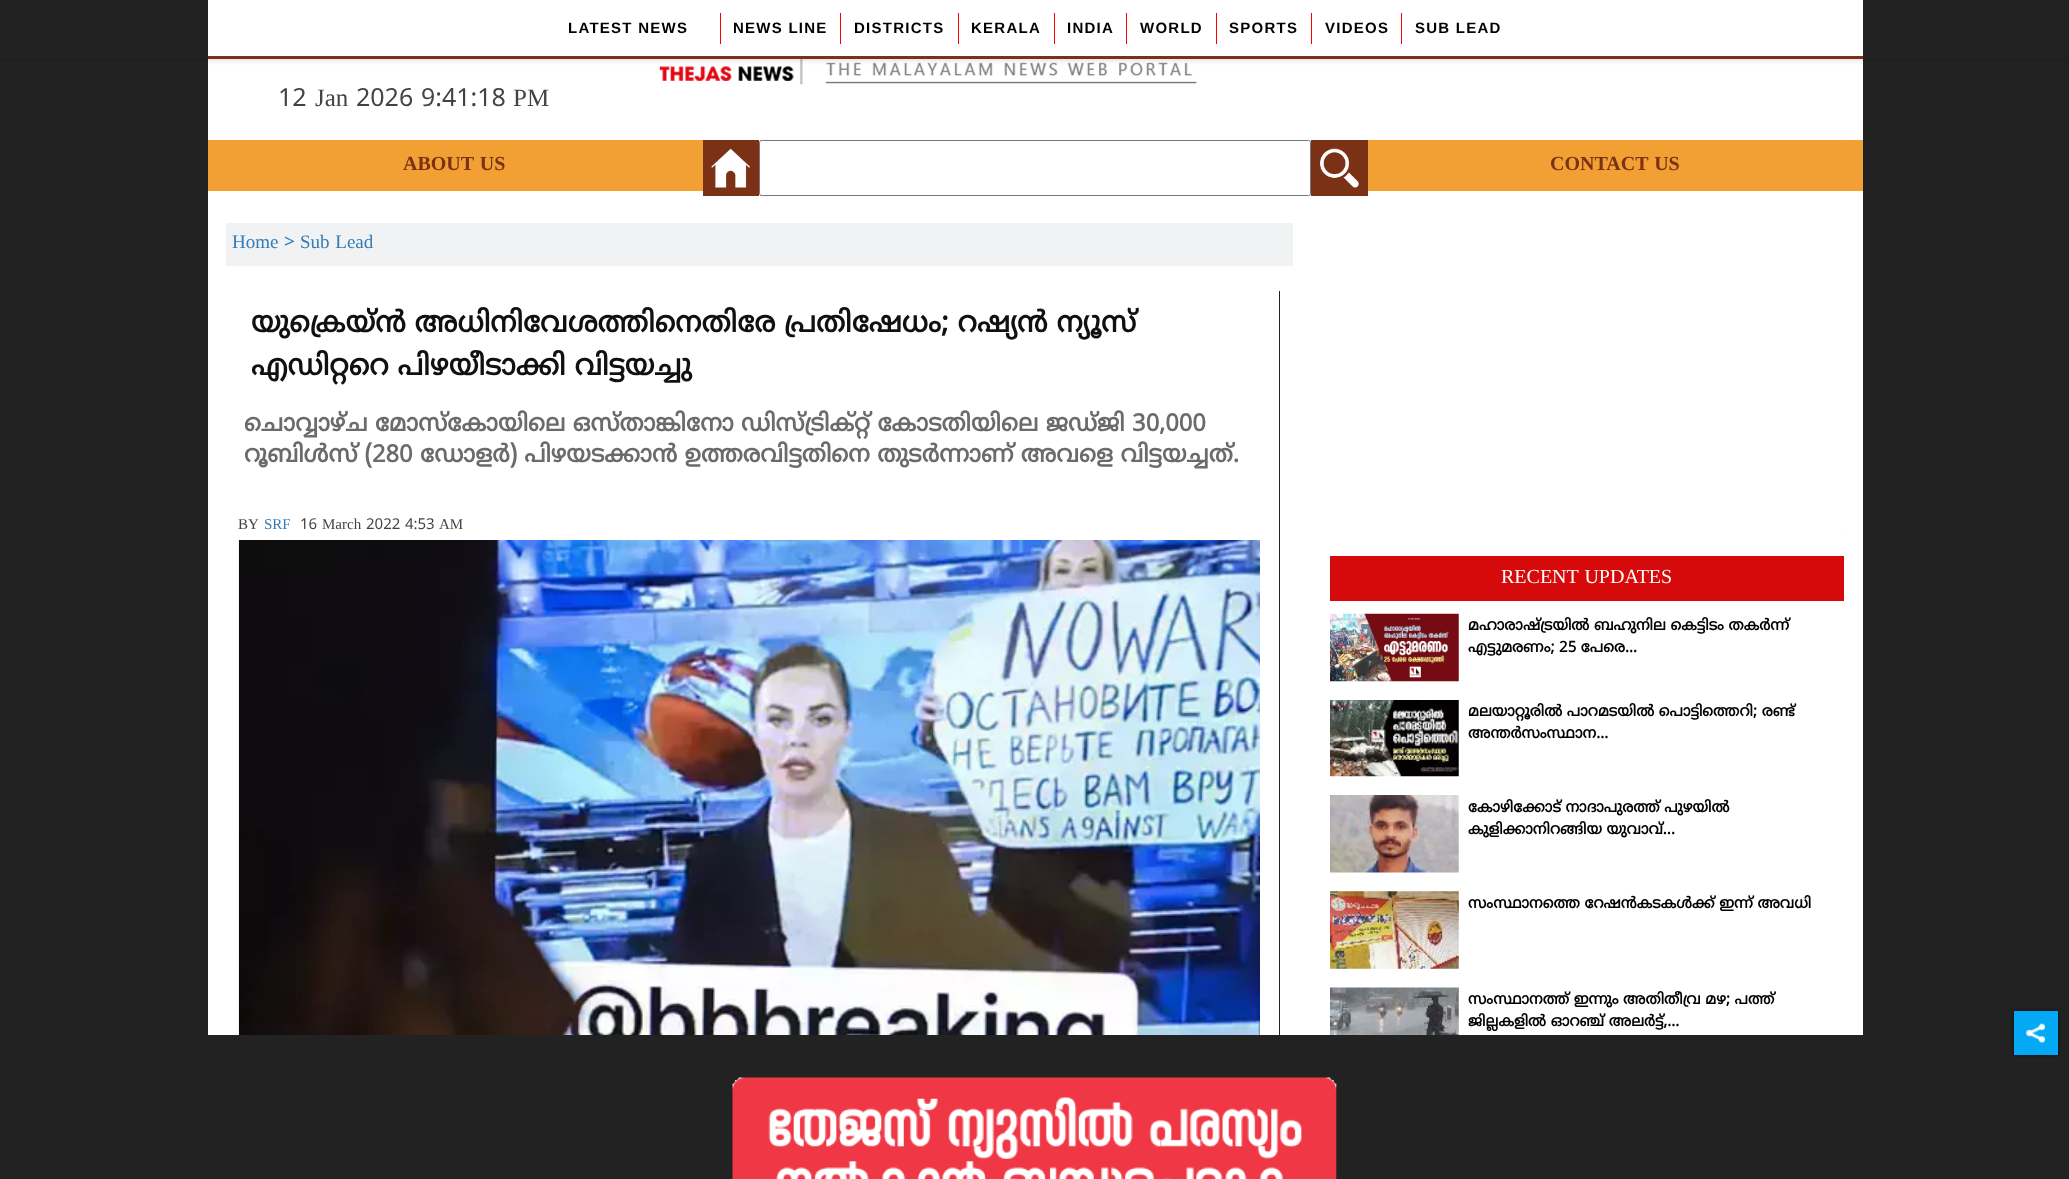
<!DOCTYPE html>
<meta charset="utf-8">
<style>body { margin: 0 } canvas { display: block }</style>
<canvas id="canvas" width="2069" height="1179"></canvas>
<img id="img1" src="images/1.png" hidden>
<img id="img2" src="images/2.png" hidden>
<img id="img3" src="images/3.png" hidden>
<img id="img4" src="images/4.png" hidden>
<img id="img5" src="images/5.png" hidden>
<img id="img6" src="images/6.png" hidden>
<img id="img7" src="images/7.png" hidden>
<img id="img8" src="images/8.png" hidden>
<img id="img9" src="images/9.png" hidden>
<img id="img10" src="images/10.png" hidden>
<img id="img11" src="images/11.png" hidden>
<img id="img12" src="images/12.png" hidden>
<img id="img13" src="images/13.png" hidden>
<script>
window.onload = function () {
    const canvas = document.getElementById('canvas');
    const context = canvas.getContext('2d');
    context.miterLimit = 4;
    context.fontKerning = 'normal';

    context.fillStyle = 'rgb(34, 34, 34)';
    context.fillRect(0, 0, 2069, 1179);
    context.fillStyle = 'rgb(255, 255, 255)';
    context.fillRect(208, 59, 1655, 976);
    context.drawImage(document.getElementById('img1'), 659, 59, 538, 26);
    context.save();
    context.beginPath();
    context.moveTo(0, 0);
    context.lineTo(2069, 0);
    context.lineTo(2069, 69);
    context.lineTo(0, 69);
    context.closePath();
    context.moveTo(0, 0);
    context.lineTo(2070, 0);
    context.lineTo(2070, 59);
    context.lineTo(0, 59);
    context.closePath();
    context.clip('evenodd');
    context.fillStyle = 'rgba(0, 0, 0, 0.2)';
    context.filter = 'blur(3px)';
    context.beginPath();
    context.rect(0, 0, 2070, 59);
    context.fill();
    context.filter = 'none';
    context.restore();
    context.fillRect(208, 0, 1655, 56);
    context.fillStyle = 'rgb(122, 49, 21)';
    context.fillRect(208, 56, 1655, 3);
    context.fillStyle = 'rgb(254, 0, 0)';
    context.fillRect(720, 13, 1, 31);
    context.fillRect(840, 13, 1, 31);
    context.fillRect(958, 13, 1, 31);
    context.fillRect(1054, 13, 1, 31);
    context.fillRect(1126, 13, 1, 31);
    context.fillRect(1216, 13, 1, 31);
    context.fillRect(1311, 13, 1, 31);
    context.fillRect(1401, 13, 1, 31);
    context.drawImage(document.getElementById('img2'), 1842, 137, 2, 2);
    context.fillStyle = 'rgb(242, 159, 51)';
    context.fillRect(208, 140, 495, 51);
    context.fillStyle = 'rgb(122, 49, 21)';
    context.fillRect(703, 140, 56, 56);
    context.drawImage(document.getElementById('img3'), 711, 148, 39, 40);
    context.beginPath();
    context.roundRect(759.5, 140.5, 551, 55, 2);
    context.strokeStyle = 'rgb(118, 118, 118)';
    context.stroke();
    context.fillStyle = 'rgb(242, 159, 51)';
    context.fillRect(1368, 140, 495, 51);
    context.fillStyle = 'rgb(122, 49, 21)';
    context.fillRect(1311, 140, 57, 56);
    context.drawImage(document.getElementById('img4'), 1320, 148, 39, 40);
    context.fillStyle = 'rgb(241, 242, 243)';
    context.fillRect(226, 223, 1067, 43);
    context.fillStyle = 'rgb(34, 34, 34)';
    context.fillRect(1279, 291, 1, 744);
    context.drawImage(document.getElementById('img5'), 238, 540, 1022, 495);
    context.drawImage(document.getElementById('img6'), 1840, 528, 4, 1);
    context.fillStyle = 'rgb(214, 10, 11)';
    context.fillRect(1330, 556, 514, 45);
    context.drawImage(document.getElementById('img7'), 1330, 613, 129, 69);
    context.drawImage(document.getElementById('img8'), 1330, 700, 129, 77);
    context.drawImage(document.getElementById('img9'), 1330, 795, 129, 78);
    context.drawImage(document.getElementById('img10'), 1330, 891, 129, 78);
    context.drawImage(document.getElementById('img11'), 1330, 987, 129, 48);
    context.fillStyle = 'rgba(0, 0, 0, 0.5)';
    context.filter = 'blur(2px)';
    context.beginPath();
    context.rect(2014, 1011, 44, 44);
    context.fill();
    context.filter = 'none';
    context.fillStyle = 'rgb(3, 169, 244)';
    context.fillRect(2014, 1011, 44, 44);
    context.drawImage(document.getElementById('img12'), 2026, 1023, 19, 20);
    context.drawImage(document.getElementById('img13'), 732, 1077, 605, 102);
    context.letterSpacing = '1.25px';
    context.font = 'bold 15px Liberation Sans';
    context.fillStyle = 'rgb(0, 0, 0)';
    context.fillText('LATEST NEWS', 568, 33);
    context.fillText('NEWS LINE', 733, 33);
    context.fillText('DISTRICTS', 854, 33);
    context.fillText('KERALA', 971, 33);
    context.fillText('INDIA', 1067, 33);
    context.fillText('WORLD', 1140, 33);
    context.fillText('SPORTS', 1229, 33);
    context.fillText('VIDEOS', 1325, 33);
    context.fillText('SUB LEAD', 1415, 33);
    context.letterSpacing = '0px';
    context.font = '25px Noto Sans Malayalam';
    context.fillStyle = 'rgb(67, 67, 67)';
    context.fillText('12', 278, 106);
    context.font = '25px Liberation Serif';
    context.fillText('Jan', 315, 106);
    context.font = '25px Noto Sans Malayalam';
    context.fillText('2026 9:41:18', 356, 106);
    context.font = '25px Liberation Serif';
    context.fillText('PM', 513, 106);
    context.wordSpacing = '1px';
    context.font = 'bold 20px Liberation Serif';
    context.fillStyle = 'rgb(122, 49, 21)';
    context.fillText('ABOUT US', 403, 170);
    context.fillText('CONTACT US', 1550, 170);
    context.wordSpacing = '0px';
    context.font = '19px Liberation Serif';
    context.fillStyle = 'rgb(51, 122, 183)';
    context.fillText('Home', 232, 248);
    context.font = '19px Noto Sans Malayalam';
    context.fillText('>', 284, 248);
    context.wordSpacing = '1px';
    context.font = '19px Liberation Serif';
    context.fillText('Sub Lead', 300, 248);
    context.wordSpacing = '0px';
    context.font = 'bold 28.75px Noto Sans Malayalam';
    context.fillStyle = 'rgb(16, 16, 16)';
    context.fillText('യുക്രെയ്ന്‍ അധിനിവേശത്തിനെതിരേ പ്രതിഷേധം; റഷ്യന്‍ ന്യൂസ്', 251, 332);
    context.fillText('എഡിറ്ററെ പിഴയീടാക്കി വിട്ടയച്ചു', 251, 375);
    context.font = 'bold 23.75px Noto Sans Malayalam';
    context.fillStyle = 'rgb(107, 107, 107)';
    context.fillText('ചൊവ്വാഴ്ച മോസ്‌കോയിലെ ഒസ്താങ്കിനോ ഡിസ്ട്രിക്റ്റ് കോടതിയിലെ ജഡ്ജി 30,000', 244, 431);
    context.fillText('റൂബിള്‍സ് (280 ഡോളര്‍) പിഴയടക്കാന്‍ ഉത്തരവിട്ടതിനെ തുടര്‍ന്നാണ് അവളെ വിട്ടയച്ചത്.', 244, 462);
    context.font = '15px Liberation Serif';
    context.fillStyle = 'rgb(67, 67, 67)';
    context.fillText('BY', 238, 529);
    context.fillStyle = 'rgb(51, 122, 183)';
    context.fillText('SRF', 264, 529);
    context.font = '15px Noto Sans Malayalam';
    context.fillStyle = 'rgb(67, 67, 67)';
    context.fillText('16', 300, 529);
    context.font = '15px Liberation Serif';
    context.fillText('March', 322, 529);
    context.font = '15px Noto Sans Malayalam';
    context.fillText('2022 4:53', 366, 529);
    context.font = '15px Liberation Serif';
    context.fillText('AM', 439, 529);
    context.wordSpacing = '1px';
    context.font = '20px Liberation Serif';
    context.fillStyle = 'rgb(255, 255, 255)';
    context.fillText('RECENT UPDATES', 1501, 583);
    context.wordSpacing = '0px';
    context.font = 'bold 15px Noto Sans Malayalam';
    context.fillStyle = 'rgb(0, 0, 0)';
    context.fillText('മഹാരാഷ്ട്രയില്‍ ബഹുനില കെട്ടിടം തകര്‍ന്ന്', 1468, 630);
    context.fillText('എട്ടുമരണം; 25 പേരെ...', 1468, 652);
    context.fillText('മലയാറ്റൂരില്‍ പാറമടയില്‍ പൊട്ടിത്തെറി; രണ്ട്', 1468, 716);
    context.fillText('അന്തര്‍സംസ്ഥാന...', 1468, 738);
    context.fillText('കോഴിക്കോട് നാദാപുരത്ത് പുഴയില്‍', 1468, 812);
    context.fillText('കുളിക്കാനിറങ്ങിയ യുവാവ്...', 1468, 834);
    context.fillText('സംസ്ഥാനത്തെ റേഷന്‍കടകള്‍ക്ക് ഇന്ന് അവധി', 1468, 908);
    context.fillText('സംസ്ഥാനത്ത് ഇന്നും അതിതീവ്ര മഴ; പത്ത്', 1468, 1004);
    context.fillText('ജില്ലകളില്‍ ഓറഞ്ച് അലര്‍ട്ട്,...', 1468, 1026);
};
</script>
